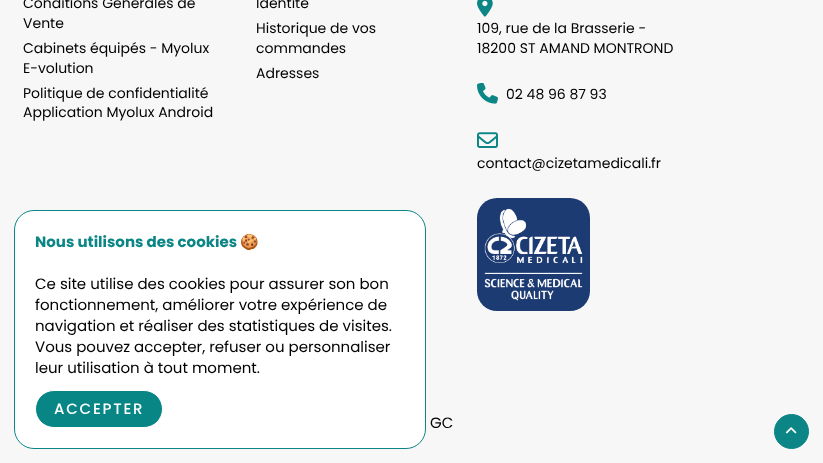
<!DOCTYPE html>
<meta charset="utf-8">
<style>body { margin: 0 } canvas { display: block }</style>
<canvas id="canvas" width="823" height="463"></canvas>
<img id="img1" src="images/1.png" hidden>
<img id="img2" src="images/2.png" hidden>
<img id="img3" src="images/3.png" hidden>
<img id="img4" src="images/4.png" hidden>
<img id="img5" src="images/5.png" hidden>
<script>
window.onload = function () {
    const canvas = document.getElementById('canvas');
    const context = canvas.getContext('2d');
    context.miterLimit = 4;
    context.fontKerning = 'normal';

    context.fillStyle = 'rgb(247, 247, 247)';
    context.fillRect(0, 0, 823, 463);
    context.drawImage(document.getElementById('img1'), 477, 0, 16, 17);
    context.drawImage(document.getElementById('img2'), 477, 83, 21, 21);
    context.drawImage(document.getElementById('img3'), 477, 132, 21, 16);
    context.drawImage(document.getElementById('img4'), 477, 198, 113, 113);
    context.fillStyle = 'rgb(255, 255, 255)';
    context.beginPath();
    context.roundRect(14.5, 210.5, 411, 238, 19.5);
    context.fill();
    context.strokeStyle = 'rgb(11, 133, 133)';
    context.stroke();
    context.fillStyle = 'rgb(8, 133, 133)';
    context.beginPath();
    context.roundRect(35.5, 390.5, 127, 37, 18.5);
    context.fill();
    context.strokeStyle = 'rgb(255, 255, 255)';
    context.stroke();
    context.fillStyle = 'rgb(11, 133, 133)';
    context.beginPath();
    context.arc(791.5, 431.5, 17, 0, 2 * Math.PI);
    context.fill();
    context.strokeStyle = 'rgb(11, 133, 133)';
    context.stroke();
    context.drawImage(document.getElementById('img5'), 785, 427, 12, 7);
    context.font = '14px Poppins';
    context.fillStyle = 'rgb(0, 0, 0)';
    context.fillText('Conditions Générales de', 23, 8);
    context.fillText('Vente', 23, 28);
    context.fillText('Cabinets équipés - Myolux', 23, 53);
    context.fillText('E-volution', 23, 73);
    context.fillText('Politique de confidentialité', 23, 98);
    context.fillText('Application Myolux Android', 23, 117);
    context.fillText('Identité', 256, 8);
    context.fillText('Historique de vos', 256, 33);
    context.fillText('commandes', 256, 53);
    context.fillText('Adresses', 256, 78);
    context.fillText('109, rue de la Brasserie -', 477, 33);
    context.fillText('18200 ST AMAND MONTROND', 477, 53);
    context.fillText('02 48 96 87 93', 506, 99);
    context.fillText('contact@cizetamedicali.fr', 477, 168);
    context.font = '15px Poppins';
    context.fillText('GC', 430, 428);
    context.font = 'bold 15px Poppins';
    context.fillStyle = 'rgb(11, 133, 133)';
    context.fillText('Nous utilisons des cookies', 35, 247);
    context.font = 'bold 15px Noto Color Emoji';
    context.fillText('🍪', 240, 247);
    context.font = '15px Poppins';
    context.fillStyle = 'rgb(0, 0, 0)';
    context.fillText('Ce site utilise des cookies pour assurer son bon', 35, 289);
    context.fillText('fonctionnement, améliorer votre expérience de', 35, 310);
    context.fillText('navigation et réaliser des statistiques de visites.', 35, 331);
    context.fillText('Vous pouvez accepter, refuser ou personnaliser', 35, 352);
    context.fillText('leur utilisation à tout moment.', 35, 373);
    context.letterSpacing = '1.75px';
    context.font = '500 15px Poppins';
    context.fillStyle = 'rgb(255, 255, 255)';
    context.fillText('ACCEPTER', 54, 414);
};
</script>
